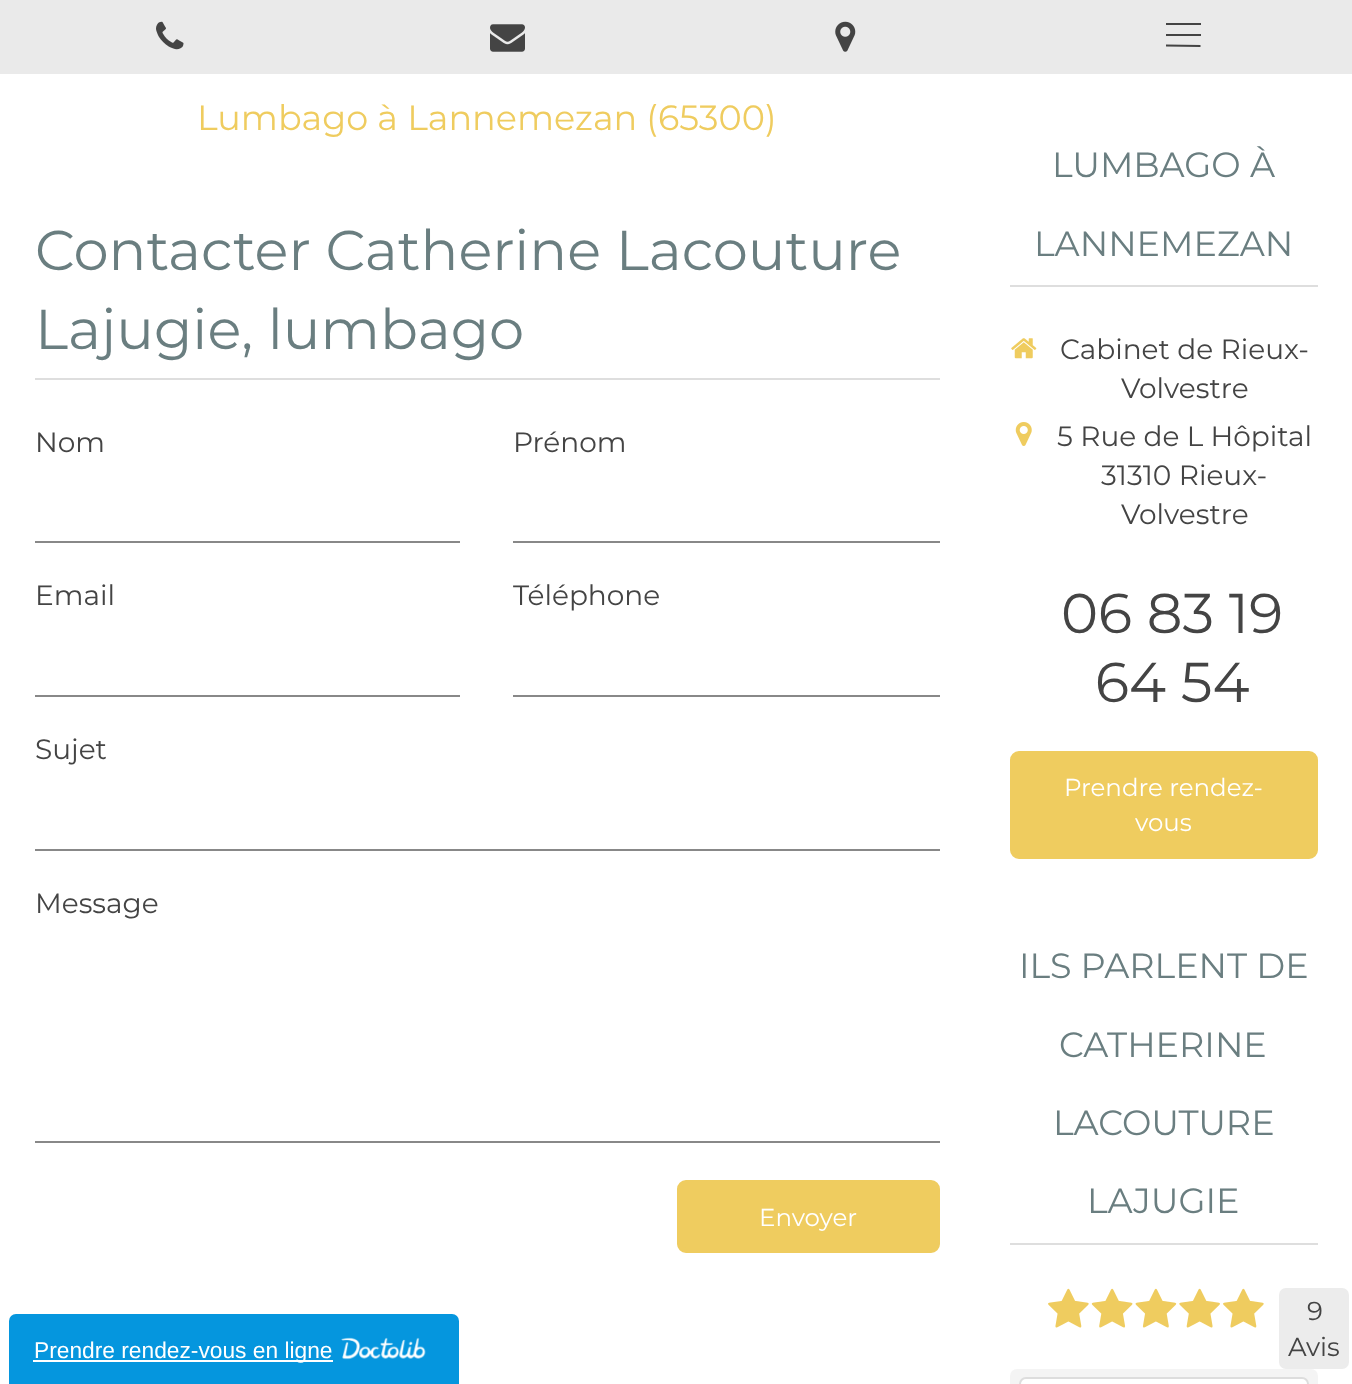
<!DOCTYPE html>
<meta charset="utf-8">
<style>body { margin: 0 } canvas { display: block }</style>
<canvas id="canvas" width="1352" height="1384"></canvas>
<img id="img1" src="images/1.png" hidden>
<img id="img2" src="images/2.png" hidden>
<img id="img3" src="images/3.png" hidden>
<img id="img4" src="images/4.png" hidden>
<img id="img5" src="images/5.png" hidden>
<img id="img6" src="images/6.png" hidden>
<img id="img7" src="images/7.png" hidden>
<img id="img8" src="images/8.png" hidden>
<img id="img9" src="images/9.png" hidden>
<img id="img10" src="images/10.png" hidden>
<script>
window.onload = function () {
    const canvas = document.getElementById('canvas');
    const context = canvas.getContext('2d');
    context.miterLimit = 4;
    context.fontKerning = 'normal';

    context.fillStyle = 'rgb(255, 255, 255)';
    context.fillRect(0, 0, 1352, 1384);
    context.fillStyle = 'rgb(234, 234, 234)';
    context.fillRect(0, 0, 1352, 74);
    context.drawImage(document.getElementById('img1'), 156, 21, 28, 29);
    context.drawImage(document.getElementById('img2'), 490, 24, 35, 28);
    context.drawImage(document.getElementById('img3'), 835, 21, 21, 31);
    context.fillStyle = 'rgb(68, 68, 68)';
    context.fillRect(1166, 23, 35, 2);
    context.fillRect(1166, 34, 35, 2);
    context.save();
    context.beginPath();
    context.rect(1166, 18, 35, 35);
    context.clip();
    context.beginPath();
    context.moveTo(1165.5, 45.5);
    context.lineTo(1200.5, 46);
    context.strokeStyle = 'rgb(68, 68, 68)';
    context.lineWidth = 2.1;
    context.stroke();
    context.restore();
    context.fillStyle = 'rgb(222, 222, 222)';
    context.fillRect(35, 378, 905, 2);
    context.fillStyle = 'rgb(136, 136, 136)';
    context.fillRect(35, 541, 425, 2);
    context.fillRect(513, 541, 427, 2);
    context.fillRect(35, 695, 425, 2);
    context.fillRect(513, 695, 427, 2);
    context.fillRect(35, 849, 905, 2);
    context.fillRect(35, 1141, 905, 2);
    context.fillStyle = 'rgb(239, 204, 95)';
    context.beginPath();
    context.roundRect(679.5, 1182.5, 258, 68, 6.5);
    context.fill();
    context.strokeStyle = 'rgb(239, 204, 95)';
    context.lineWidth = 5;
    context.stroke();
    context.fillStyle = 'rgb(222, 222, 222)';
    context.fillRect(1010, 285, 308, 2);
    context.drawImage(document.getElementById('img4'), 1011, 338, 26, 21);
    context.drawImage(document.getElementById('img5'), 1015, 422, 17, 24);
    context.fillStyle = 'rgb(239, 204, 95)';
    context.beginPath();
    context.roundRect(1012.5, 753.5, 303, 103, 6.5);
    context.fill();
    context.stroke();
    context.fillStyle = 'rgb(222, 222, 222)';
    context.fillRect(1010, 1243, 308, 2);
    context.drawImage(document.getElementById('img6'), 1048, 1288, 41, 40);
    context.drawImage(document.getElementById('img7'), 1091, 1288, 42, 40);
    context.drawImage(document.getElementById('img8'), 1135, 1288, 42, 40);
    context.drawImage(document.getElementById('img9'), 1179, 1288, 41, 40);
    context.drawImage(document.getElementById('img6'), 1223, 1288, 41, 40);
    context.fillStyle = 'rgb(236, 236, 236)';
    context.beginPath();
    context.roundRect(1279, 1288, 70, 81, 7);
    context.fill();
    context.fillStyle = 'rgb(244, 244, 244)';
    context.beginPath();
    context.roundRect(1010, 1369, 308, 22, 7);
    context.fill();
    context.fillStyle = 'rgb(255, 255, 255)';
    context.beginPath();
    context.roundRect(1020, 1378, 288, 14, 6);
    context.fill();
    context.strokeStyle = 'rgb(221, 221, 221)';
    context.lineWidth = 2;
    context.stroke();
    context.fillStyle = 'rgb(5, 150, 222)';
    context.beginPath();
    context.roundRect(9, 1314, 450, 70, [7, 7, 0, 0]);
    context.fill();
    context.fillStyle = 'rgb(255, 255, 255)';
    context.fillRect(33, 1360, 300, 2);
    context.drawImage(document.getElementById('img10'), 341, 1337, 85, 23);
    context.font = '100 35px Montserrat';
    context.fillStyle = 'rgb(239, 204, 95)';
    context.fillText('Lumbago à Lannemezan (65300)', 197, 130);
    context.font = '100 56px Montserrat';
    context.fillStyle = 'rgb(106, 126, 128)';
    context.fillText('Contacter Catherine Lacouture', 35, 270);
    context.fillText('Lajugie, lumbago', 35, 349);
    context.font = '100 28px Montserrat';
    context.fillStyle = 'rgb(68, 68, 68)';
    context.fillText('Nom', 35, 452);
    context.fillText('Prénom', 513, 452);
    context.fillText('Email', 35, 605);
    context.fillText('Téléphone', 513, 605);
    context.fillText('Sujet', 35, 759);
    context.fillText('Message', 35, 913);
    context.font = '100 24.5px Montserrat';
    context.fillStyle = 'rgb(255, 255, 255)';
    context.fillText('Envoyer', 759, 1226);
    context.font = '100 35px Montserrat';
    context.fillStyle = 'rgb(106, 126, 128)';
    context.fillText('LUMBAGO À', 1052, 177);
    context.fillText('LANNEMEZAN', 1034, 256);
    context.font = '100 28px Montserrat';
    context.fillStyle = 'rgb(68, 68, 68)';
    context.fillText('Cabinet de Rieux-', 1060, 359);
    context.fillText('Volvestre', 1121, 398);
    context.fillText('5 Rue de L Hôpital', 1057, 446);
    context.fillText('31310 Rieux-', 1101, 485);
    context.fillText('Volvestre', 1121, 524);
    context.font = '100 56px Montserrat';
    context.fillText('06 83 19', 1061, 633);
    context.fillText('64 54', 1095, 702);
    context.font = '100 24.5px Montserrat';
    context.fillStyle = 'rgb(255, 255, 255)';
    context.fillText('Prendre rendez-', 1064, 796);
    context.fillText('vous', 1135, 831);
    context.font = '100 35px Montserrat';
    context.fillStyle = 'rgb(106, 126, 128)';
    context.fillText('ILS PARLENT DE', 1019, 978);
    context.fillText('CATHERINE', 1059, 1057);
    context.fillText('LACOUTURE', 1053, 1135);
    context.fillText('LAJUGIE', 1087, 1213);
    context.font = '100 26px Montserrat';
    context.fillStyle = 'rgb(68, 68, 68)';
    context.fillText('9', 1307, 1320);
    context.fillText('Avis', 1288, 1356);
    context.font = '22.75px Liberation Sans';
    context.fillStyle = 'rgb(255, 255, 255)';
    context.fillText('Prendre rendez-vous en ligne', 34, 1358);
};
</script>
